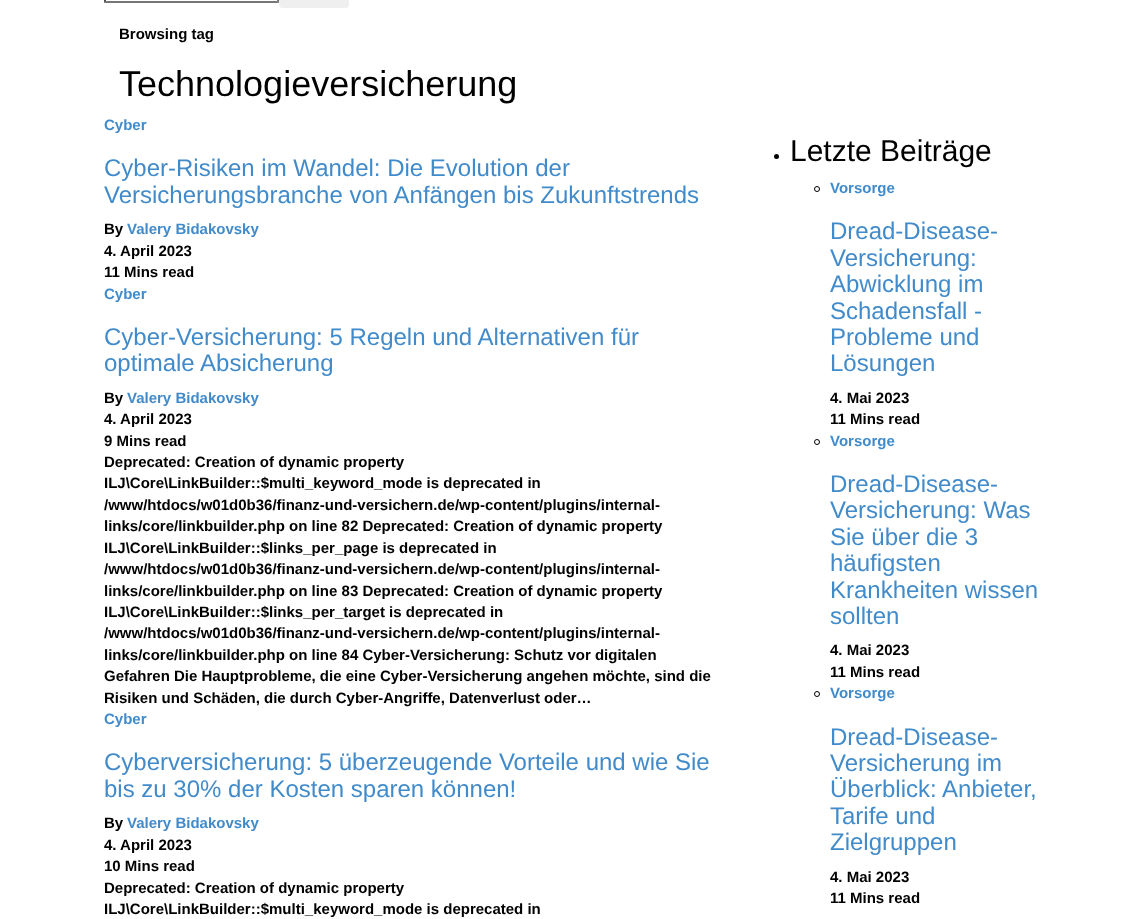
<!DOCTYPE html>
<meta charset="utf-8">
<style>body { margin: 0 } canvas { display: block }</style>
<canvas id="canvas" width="1147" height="919"></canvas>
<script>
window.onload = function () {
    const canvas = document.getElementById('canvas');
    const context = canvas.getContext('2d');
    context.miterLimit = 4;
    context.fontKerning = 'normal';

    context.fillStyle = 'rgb(255, 255, 255)';
    context.fillRect(0, 0, 1147, 919);
    context.fillStyle = 'rgb(118, 118, 118)';
    context.beginPath();
    context.moveTo(279, -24);
    context.lineTo(279, 3);
    context.lineTo(277, 1);
    context.lineTo(277, -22);
    context.closePath();
    context.fill();
    context.beginPath();
    context.moveTo(279, 3);
    context.lineTo(104, 3);
    context.lineTo(106, 1);
    context.lineTo(277, 1);
    context.closePath();
    context.fill();
    context.fillStyle = 'rgb(79, 79, 79)';
    context.beginPath();
    context.moveTo(104, 3);
    context.lineTo(104, -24);
    context.lineTo(106, -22);
    context.lineTo(106, 1);
    context.closePath();
    context.fill();
    context.fillStyle = 'rgb(239, 239, 239)';
    context.beginPath();
    context.roundRect(279, -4, 70, 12, 4);
    context.fill();
    context.fillStyle = 'rgb(0, 0, 0)';
    context.beginPath();
    context.arc(776.5, 156.5, 2.5, 0, 2 * Math.PI);
    context.fill();
    context.beginPath();
    context.arc(817, 189, 2.5, 0, 2 * Math.PI);
    context.strokeStyle = 'rgb(0, 0, 0)';
    context.stroke();
    context.beginPath();
    context.arc(817, 442, 2.5, 0, 2 * Math.PI);
    context.stroke();
    context.beginPath();
    context.arc(817, 694, 2.5, 0, 2 * Math.PI);
    context.stroke();
    context.font = 'bold 15px Liberation Sans';
    context.fillText('Browsing tag', 119, 39);
    context.font = '36px Liberation Sans';
    context.fillText('Technologieversicherung', 119, 96);
    context.font = 'bold 15px Liberation Sans';
    context.fillStyle = 'rgb(66, 139, 202)';
    context.fillText('Cyber', 104, 130);
    context.font = '24px Liberation Sans';
    context.fillText('Cyber-Risiken im Wandel: Die Evolution der', 104, 176);
    context.fillText('Versicherungsbranche von Anfängen bis Zukunftstrends', 104, 203);
    context.font = 'bold 15px Liberation Sans';
    context.fillStyle = 'rgb(0, 0, 0)';
    context.fillText('By', 104, 234);
    context.fillStyle = 'rgb(66, 139, 202)';
    context.fillText('Valery Bidakovsky', 127, 234);
    context.fillStyle = 'rgb(0, 0, 0)';
    context.fillText('4. April 2023', 104, 256);
    context.fillText('11 Mins read', 104, 277);
    context.fillStyle = 'rgb(66, 139, 202)';
    context.fillText('Cyber', 104, 299);
    context.font = '24px Liberation Sans';
    context.fillText('Cyber-Versicherung: 5 Regeln und Alternativen für', 104, 345);
    context.fillText('optimale Absicherung', 104, 371);
    context.font = 'bold 15px Liberation Sans';
    context.fillStyle = 'rgb(0, 0, 0)';
    context.fillText('By', 104, 403);
    context.fillStyle = 'rgb(66, 139, 202)';
    context.fillText('Valery Bidakovsky', 127, 403);
    context.fillStyle = 'rgb(0, 0, 0)';
    context.fillText('4. April 2023', 104, 424);
    context.fillText('9 Mins read', 104, 446);
    context.fillText('Deprecated: Creation of dynamic property', 104, 467);
    context.fillText('ILJ\\Core\\LinkBuilder::$multi_keyword_mode is deprecated in', 104, 488);
    context.fillText('/www/htdocs/w01d0b36/finanz-und-versichern.de/wp-content/plugins/internal-', 104, 510);
    context.fillText('links/core/linkbuilder.php on line 82 Deprecated: Creation of dynamic property', 104, 531);
    context.fillText('ILJ\\Core\\LinkBuilder::$links_per_page is deprecated in', 104, 553);
    context.fillText('/www/htdocs/w01d0b36/finanz-und-versichern.de/wp-content/plugins/internal-', 104, 574);
    context.fillText('links/core/linkbuilder.php on line 83 Deprecated: Creation of dynamic property', 104, 596);
    context.fillText('ILJ\\Core\\LinkBuilder::$links_per_target is deprecated in', 104, 617);
    context.fillText('/www/htdocs/w01d0b36/finanz-und-versichern.de/wp-content/plugins/internal-', 104, 638);
    context.fillText('links/core/linkbuilder.php on line 84 Cyber-Versicherung: Schutz vor digitalen', 104, 660);
    context.fillText('Gefahren Die Hauptprobleme, die eine Cyber-Versicherung angehen möchte, sind die', 104, 681);
    context.fillText('Risiken und Schäden, die durch Cyber-Angriffe, Datenverlust oder…', 104, 703);
    context.fillStyle = 'rgb(66, 139, 202)';
    context.fillText('Cyber', 104, 724);
    context.font = '24px Liberation Sans';
    context.fillText('Cyberversicherung: 5 überzeugende Vorteile und wie Sie', 104, 770);
    context.fillText('bis zu 30% der Kosten sparen können!', 104, 797);
    context.font = 'bold 15px Liberation Sans';
    context.fillStyle = 'rgb(0, 0, 0)';
    context.fillText('By', 104, 828);
    context.fillStyle = 'rgb(66, 139, 202)';
    context.fillText('Valery Bidakovsky', 127, 828);
    context.fillStyle = 'rgb(0, 0, 0)';
    context.fillText('4. April 2023', 104, 850);
    context.fillText('10 Mins read', 104, 871);
    context.fillText('Deprecated: Creation of dynamic property', 104, 893);
    context.fillText('ILJ\\Core\\LinkBuilder::$multi_keyword_mode is deprecated in', 104, 914);
    context.font = '30px Liberation Sans';
    context.fillText('Letzte Beiträge', 790, 161);
    context.font = 'bold 15px Liberation Sans';
    context.fillStyle = 'rgb(66, 139, 202)';
    context.fillText('Vorsorge', 830, 193);
    context.font = '24px Liberation Sans';
    context.fillText('Dread-Disease-', 830, 239);
    context.fillText('Versicherung:', 830, 266);
    context.fillText('Abwicklung im', 830, 292);
    context.fillText('Schadensfall -', 830, 319);
    context.fillText('Probleme und', 830, 345);
    context.fillText('Lösungen', 830, 371);
    context.font = 'bold 15px Liberation Sans';
    context.fillStyle = 'rgb(0, 0, 0)';
    context.fillText('4. Mai 2023', 830, 403);
    context.fillText('11 Mins read', 830, 424);
    context.fillStyle = 'rgb(66, 139, 202)';
    context.fillText('Vorsorge', 830, 446);
    context.font = '24px Liberation Sans';
    context.fillText('Dread-Disease-', 830, 492);
    context.fillText('Versicherung: Was', 830, 518);
    context.fillText('Sie über die 3', 830, 545);
    context.fillText('häufigsten', 830, 571);
    context.fillText('Krankheiten wissen', 830, 598);
    context.fillText('sollten', 830, 624);
    context.font = 'bold 15px Liberation Sans';
    context.fillStyle = 'rgb(0, 0, 0)';
    context.fillText('4. Mai 2023', 830, 655);
    context.fillText('11 Mins read', 830, 677);
    context.fillStyle = 'rgb(66, 139, 202)';
    context.fillText('Vorsorge', 830, 698);
    context.font = '24px Liberation Sans';
    context.fillText('Dread-Disease-', 830, 745);
    context.fillText('Versicherung im', 830, 771);
    context.fillText('Überblick: Anbieter,', 830, 797);
    context.fillText('Tarife und', 830, 824);
    context.fillText('Zielgruppen', 830, 850);
    context.font = 'bold 15px Liberation Sans';
    context.fillStyle = 'rgb(0, 0, 0)';
    context.fillText('4. Mai 2023', 830, 882);
    context.fillText('11 Mins read', 830, 903);
};
</script>
